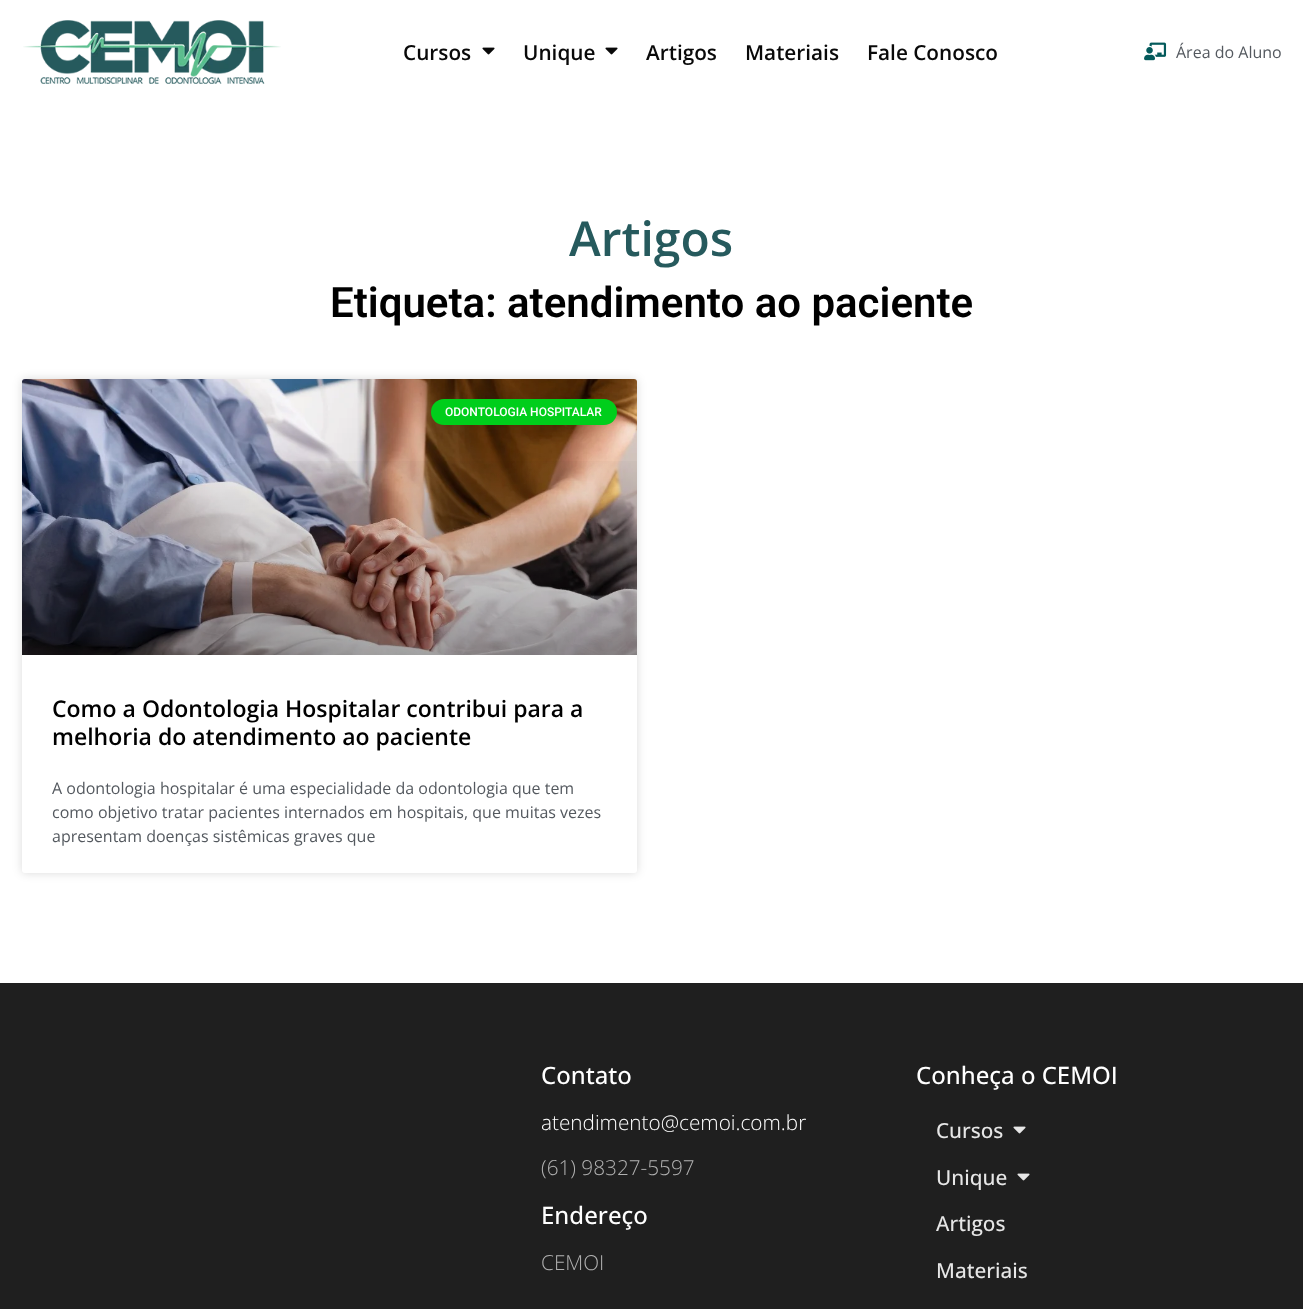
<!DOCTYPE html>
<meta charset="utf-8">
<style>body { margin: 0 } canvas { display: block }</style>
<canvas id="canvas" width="1303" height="1309"></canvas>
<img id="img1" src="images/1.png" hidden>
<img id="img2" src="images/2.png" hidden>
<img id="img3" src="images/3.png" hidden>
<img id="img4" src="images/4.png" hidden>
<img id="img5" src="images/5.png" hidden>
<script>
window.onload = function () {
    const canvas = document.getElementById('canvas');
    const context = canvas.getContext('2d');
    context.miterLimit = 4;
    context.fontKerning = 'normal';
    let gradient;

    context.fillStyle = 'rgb(255, 255, 255)';
    context.fillRect(0, 0, 1303, 1309);
    context.drawImage(document.getElementById('img1'), 23, 20, 258, 64);
    context.drawImage(document.getElementById('img2'), 482, 47, 13, 8);
    context.drawImage(document.getElementById('img2'), 605, 47, 13, 8);
    context.drawImage(document.getElementById('img3'), 1144, 42, 23, 19);
    context.fillStyle = 'rgba(0, 0, 0, 0.15)';
    context.filter = 'blur(5px)';
    context.beginPath();
    context.roundRect(22, 379, 615, 494, 3);
    context.fill();
    context.filter = 'none';
    context.fillStyle = 'rgb(255, 255, 255)';
    context.beginPath();
    context.roundRect(22, 379, 615, 494, 3);
    context.fill();
    context.drawImage(document.getElementById('img4'), 22, 379, 615, 276);
    gradient = context.createLinearGradient(330, 655, 330, 379);
    gradient.addColorStop(0, 'rgba(0, 0, 0, 0.35)');
    gradient.addColorStop(0.75, 'rgba(0, 0, 0, 0)');
    context.fillStyle = gradient;
    context.fillRect(22, 461, 615, 194);
    context.fillStyle = 'rgb(0, 206, 27)';
    context.beginPath();
    context.roundRect(431, 399, 186, 26, 13);
    context.fill();
    context.fillStyle = 'rgb(31, 31, 31)';
    context.fillRect(0, 983, 1303, 326);
    context.drawImage(document.getElementById('img5'), 1013, 1126, 13, 8);
    context.drawImage(document.getElementById('img5'), 1017, 1173, 13, 8);
    context.font = '600 20.75px Open Sans';
    context.fillStyle = 'rgb(9, 9, 9)';
    context.fillText('Cursos', 403, 60);
    context.fillText('Unique', 523, 60);
    context.fillText('Artigos', 646, 60);
    context.fillText('Materiais', 745, 60);
    context.fillText('Fale Conosco', 867, 60);
    context.font = '16px Open Sans';
    context.fillStyle = 'rgb(84, 89, 95)';
    context.fillText('Área do Aluno', 1176, 58);
    context.font = '600 48px Open Sans';
    context.fillStyle = 'rgb(38, 90, 93)';
    context.fillText('Artigos', 569, 256);
    context.font = '600 42px Roboto';
    context.fillStyle = 'rgb(0, 0, 0)';
    context.fillText('Etiqueta: atendimento ao paciente', 330, 317);
    context.font = '500 12px Roboto';
    context.fillStyle = 'rgb(255, 255, 255)';
    context.fillText('ODONTOLOGIA HOSPITALAR', 445, 416);
    context.font = '600 23px Open Sans';
    context.fillStyle = 'rgb(0, 0, 0)';
    context.fillText('Como a Odontologia Hospitalar contribui para a', 52, 717);
    context.fillText('melhoria do atendimento ao paciente', 52, 745);
    context.font = '16px Open Sans';
    context.fillStyle = 'rgb(84, 89, 95)';
    context.fillText('A odontologia hospitalar é uma especialidade da odontologia que tem', 52, 794);
    context.fillText('como objetivo tratar pacientes internados em hospitais, que muitas vezes', 52, 818);
    context.fillText('apresentam doenças sistêmicas graves que', 52, 842);
    context.font = '500 24px Open Sans';
    context.fillStyle = 'rgb(255, 255, 255)';
    context.fillText('Contato', 541, 1084);
    context.font = '300 20.75px Open Sans';
    context.fillText('atendimento@cemoi.com.br', 541, 1130);
    context.fillStyle = 'rgb(177, 177, 177)';
    context.fillText('(61) 98327-5597', 541, 1175);
    context.font = '500 24px Open Sans';
    context.fillStyle = 'rgb(255, 255, 255)';
    context.fillText('Endereço', 541, 1224);
    context.font = '300 20.75px Open Sans';
    context.fillStyle = 'rgb(177, 177, 177)';
    context.fillText('CEMOI', 541, 1270);
    context.font = '500 24px Open Sans';
    context.fillStyle = 'rgb(255, 255, 255)';
    context.fillText('Conheça o CEMOI', 916, 1084);
    context.font = '500 20.75px Open Sans';
    context.fillStyle = 'rgb(230, 230, 230)';
    context.fillText('Cursos', 936, 1138);
    context.fillText('Unique', 936, 1185);
    context.fillText('Artigos', 936, 1231);
    context.fillText('Materiais', 936, 1278);
};
</script>
